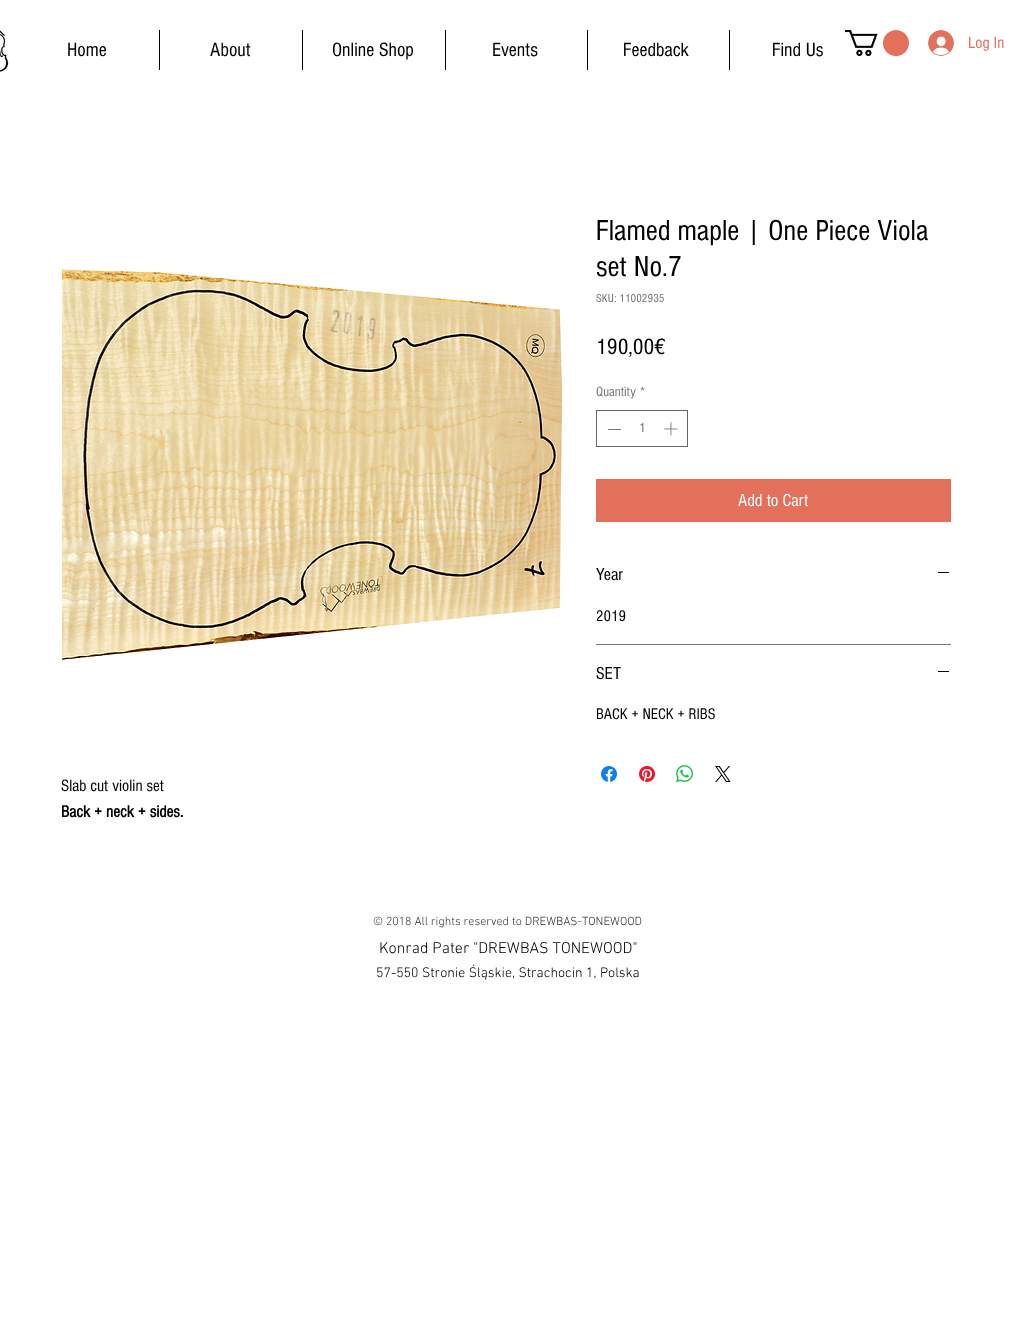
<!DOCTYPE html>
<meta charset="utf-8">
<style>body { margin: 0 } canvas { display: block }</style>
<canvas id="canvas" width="1012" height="1320"></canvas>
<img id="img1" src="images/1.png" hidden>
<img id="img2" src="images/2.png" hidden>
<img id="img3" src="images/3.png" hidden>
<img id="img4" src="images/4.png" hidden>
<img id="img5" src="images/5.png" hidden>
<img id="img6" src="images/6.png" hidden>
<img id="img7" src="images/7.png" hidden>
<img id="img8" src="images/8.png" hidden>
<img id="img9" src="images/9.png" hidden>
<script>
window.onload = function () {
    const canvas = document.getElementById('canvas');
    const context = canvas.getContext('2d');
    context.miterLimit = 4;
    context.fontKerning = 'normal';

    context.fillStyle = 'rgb(255, 255, 255)';
    context.fillRect(0, 0, 1012, 1320);
    context.drawImage(document.getElementById('img1'), 0, 30, 9, 42);
    context.strokeStyle = 'rgb(102, 102, 102)';
    context.strokeRect(596.5, 410.5, 91, 36);
    context.fillStyle = 'rgb(119, 119, 119)';
    context.fillRect(608, 429, 13, 1);
    context.drawImage(document.getElementById('img2'), 664, 422, 14, 14);
    context.fillStyle = 'rgb(226, 112, 90)';
    context.fillRect(596, 479, 355, 43);
    context.fillStyle = 'rgb(119, 119, 119)';
    context.fillRect(596, 644, 355, 1);
    context.fillStyle = 'rgb(0, 0, 0)';
    context.fillRect(938, 572, 11, 1);
    context.fillRect(938, 671, 11, 1);
    context.drawImage(document.getElementById('img3'), 601, 766, 16, 16);
    context.drawImage(document.getElementById('img4'), 639, 766, 16, 16);
    context.drawImage(document.getElementById('img5'), 676, 765, 17, 17);
    context.drawImage(document.getElementById('img6'), 715, 766, 16, 16);
    context.drawImage(document.getElementById('img7'), 62, 269, 500, 391);
    context.fillRect(159, 30, 1, 40);
    context.fillRect(302, 30, 1, 40);
    context.fillRect(445, 30, 1, 40);
    context.fillRect(587, 30, 1, 40);
    context.fillRect(729, 30, 1, 40);
    context.drawImage(document.getElementById('img8'), 845, 30, 64, 27);
    context.drawImage(document.getElementById('img9'), 928, 30, 26, 26);
    context.font = '20px "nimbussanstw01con"';
    context.fillText('Home', 67, 56);
    context.fillText('About', 210, 56);
    context.fillText('Online Shop', 332, 56);
    context.fillText('Events', 492, 56);
    context.fillText('Feedback', 623, 56);
    context.fillText('Find Us', 772, 56);
    context.font = '30px "nimbussanstw01con"';
    context.fillText('Flamed maple | One Piece Viola', 596, 240);
    context.fillText('set No.7', 596, 276);
    context.font = '12px "nimbussanstw01con"';
    context.fillStyle = 'rgb(119, 119, 119)';
    context.fillText('SKU: 11002935', 596, 302);
    context.font = '23px "nimbussanstw01con"';
    context.fillStyle = 'rgb(0, 0, 0)';
    context.fillText('190,00€', 596, 354);
    context.font = '14px "nimbussanstw01con"';
    context.fillStyle = 'rgb(119, 119, 119)';
    context.fillText('Quantity', 596, 396);
    context.fillText('*', 640, 396);
    context.fillText('1', 639, 432);
    context.font = '18px "nimbussanstw01con"';
    context.fillStyle = 'rgb(255, 255, 255)';
    context.fillText('Add to Cart', 738, 506);
    context.fillStyle = 'rgb(0, 0, 0)';
    context.fillText('Year', 596, 580);
    context.font = '16px "nimbussanstw01con"';
    context.fillText('2019', 596, 621);
    context.font = '18px "nimbussanstw01con"';
    context.fillText('SET', 596, 679);
    context.font = '16px "nimbussanstw01con"';
    context.fillText('BACK + NECK + RIBS', 596, 719);
    context.font = '17px "nimbussanstw01con"';
    context.fillText('Slab cut violin set', 61, 791);
    context.font = 'bold 17px "nimbussanstw01con"';
    context.fillText('Back + neck + sides.', 61, 817);
    context.font = '17px "nimbussanstw01con"';
    context.fillStyle = 'rgb(226, 112, 90)';
    context.fillText('Log In', 968, 48);
    context.font = '300 12px "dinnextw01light"';
    context.fillStyle = 'rgb(51, 51, 51)';
    context.fillText('© 2018 All rights reserved to DREWBAS-TONEWOOD', 373, 925);
    context.font = '300 16px "dinnextw01light"';
    context.fillStyle = 'rgb(0, 0, 0)';
    context.fillText('Konrad Pater "DREWBAS TONEWOOD"', 379, 953);
    context.font = '300 14px "dinnextw01light"';
    context.fillText('57-550 Stronie Śląskie, Strachocin 1, Polska', 376, 977);
};
</script>
